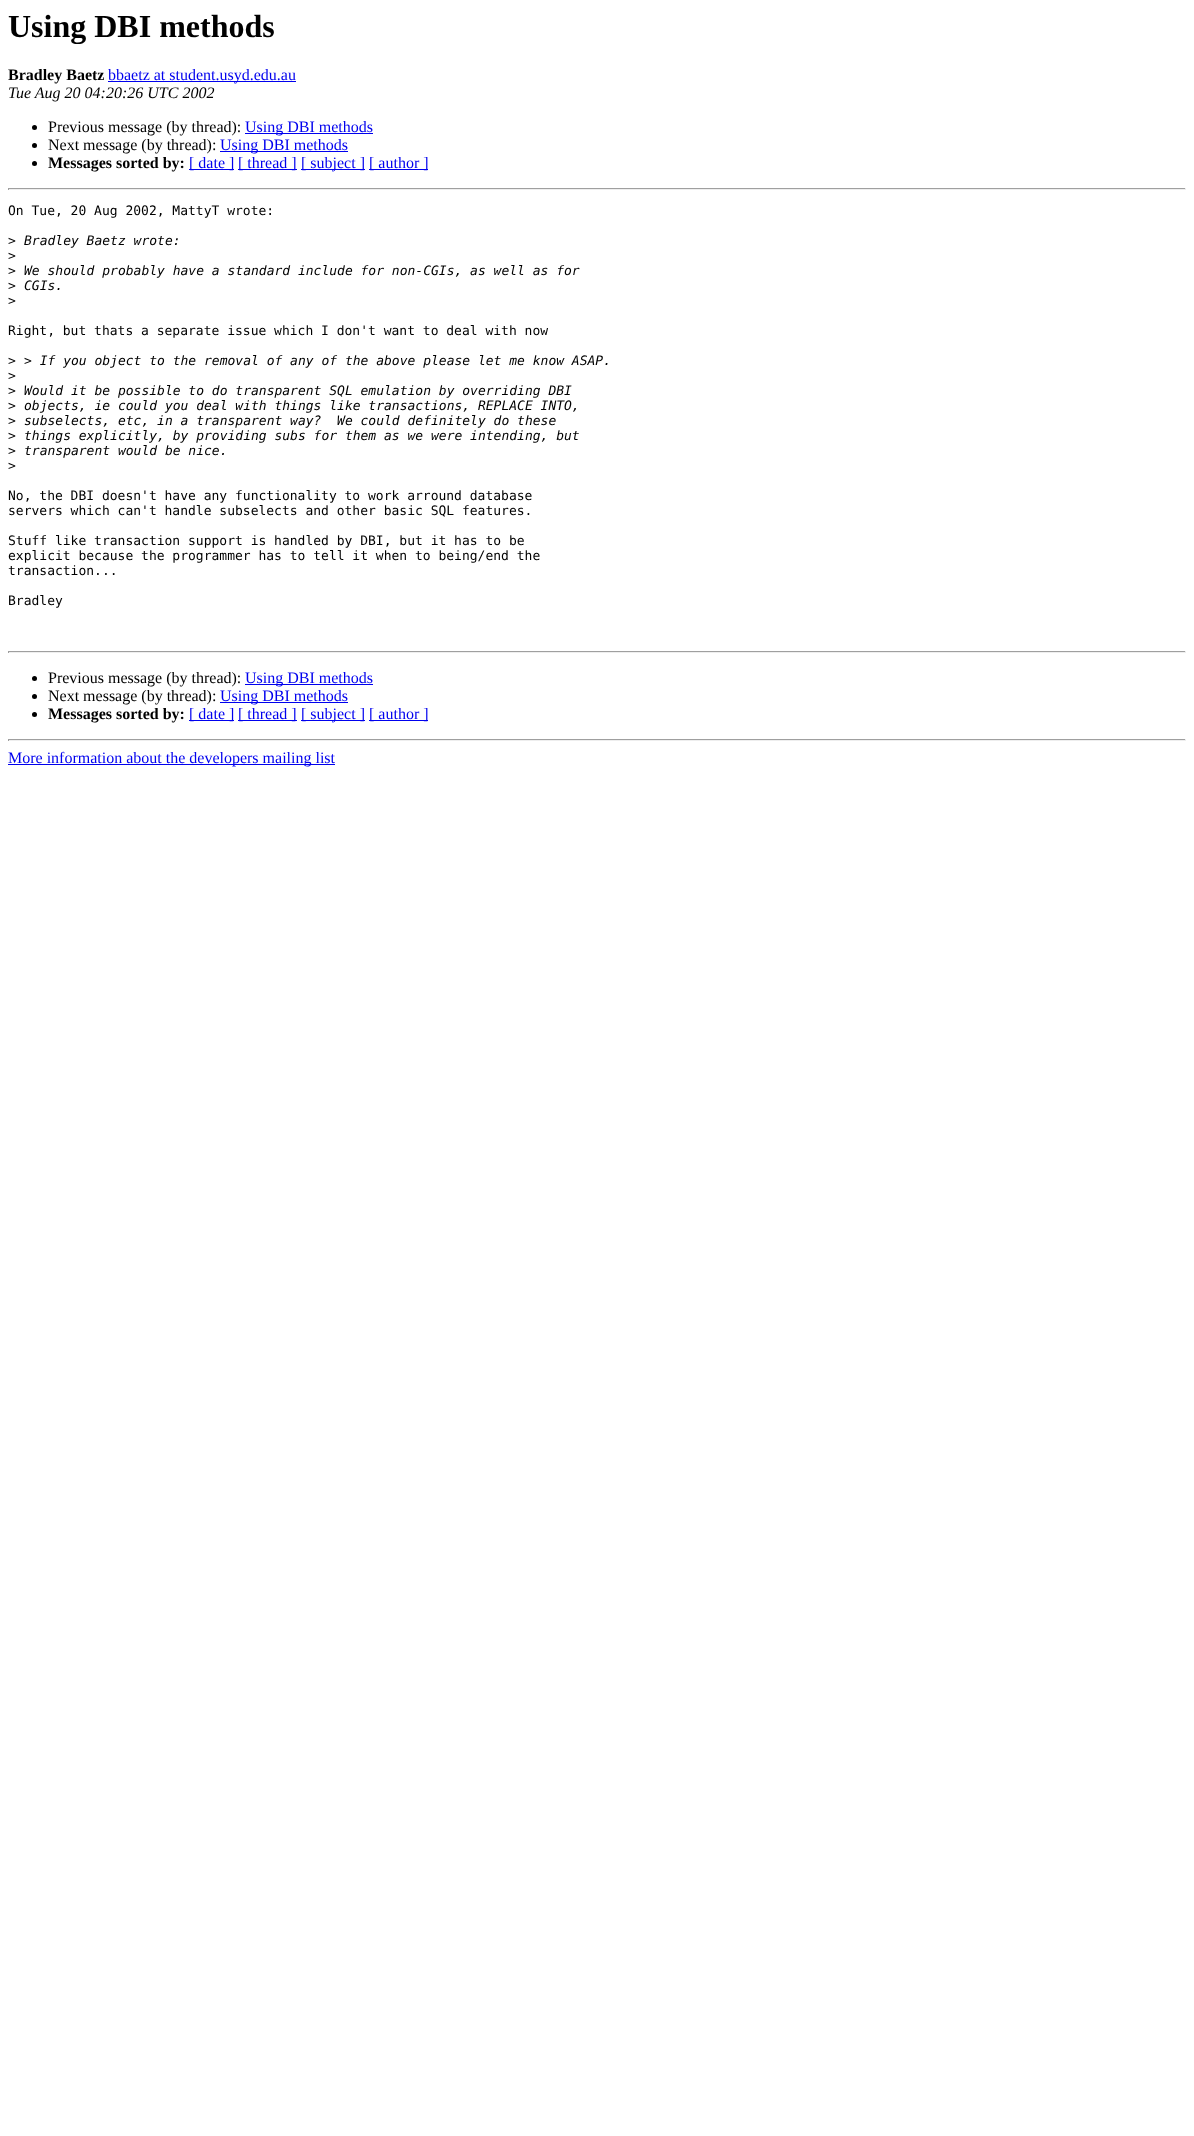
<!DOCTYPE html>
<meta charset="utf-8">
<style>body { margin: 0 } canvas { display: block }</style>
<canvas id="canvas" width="1194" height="2136"></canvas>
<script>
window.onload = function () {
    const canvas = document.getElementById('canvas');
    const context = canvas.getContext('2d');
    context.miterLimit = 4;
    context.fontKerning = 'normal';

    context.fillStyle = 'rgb(255, 255, 255)';
    context.fillRect(0, 0, 1194, 2136);
    context.fillStyle = 'rgb(0, 0, 238)';
    context.fillRect(108, 81, 188, 1);
    context.fillStyle = 'rgb(0, 0, 0)';
    context.beginPath();
    context.arc(34.5, 127.5, 2.5, 0, 2 * Math.PI);
    context.fill();
    context.fillStyle = 'rgb(0, 0, 238)';
    context.fillRect(245, 133, 128, 1);
    context.fillStyle = 'rgb(0, 0, 0)';
    context.beginPath();
    context.arc(34.5, 145.5, 2.5, 0, 2 * Math.PI);
    context.fill();
    context.fillStyle = 'rgb(0, 0, 238)';
    context.fillRect(220, 151, 128, 1);
    context.fillStyle = 'rgb(0, 0, 0)';
    context.beginPath();
    context.arc(34.5, 163.5, 2.5, 0, 2 * Math.PI);
    context.fill();
    context.fillStyle = 'rgb(0, 0, 238)';
    context.fillRect(189, 169, 45, 1);
    context.fillRect(238, 169, 59, 1);
    context.fillRect(301, 169, 64, 1);
    context.fillRect(369, 169, 59, 1);
    context.fillStyle = 'rgb(159, 159, 159)';
    context.fillRect(8, 188, 1178, 1);
    context.fillStyle = 'rgb(238, 238, 238)';
    context.fillRect(1185, 188, 1, 2);
    context.fillRect(8, 189, 1178, 1);
    context.fillStyle = 'rgb(159, 159, 159)';
    context.fillRect(8, 188, 1, 2);
    context.fillRect(8, 651, 1178, 1);
    context.fillStyle = 'rgb(238, 238, 238)';
    context.fillRect(1185, 651, 1, 2);
    context.fillRect(8, 652, 1178, 1);
    context.fillStyle = 'rgb(159, 159, 159)';
    context.fillRect(8, 651, 1, 2);
    context.fillStyle = 'rgb(0, 0, 0)';
    context.beginPath();
    context.arc(34.5, 678.5, 2.5, 0, 2 * Math.PI);
    context.fill();
    context.fillStyle = 'rgb(0, 0, 238)';
    context.fillRect(245, 684, 128, 1);
    context.fillStyle = 'rgb(0, 0, 0)';
    context.beginPath();
    context.arc(34.5, 696.5, 2.5, 0, 2 * Math.PI);
    context.fill();
    context.fillStyle = 'rgb(0, 0, 238)';
    context.fillRect(220, 702, 128, 1);
    context.fillStyle = 'rgb(0, 0, 0)';
    context.beginPath();
    context.arc(34.5, 714.5, 2.5, 0, 2 * Math.PI);
    context.fill();
    context.fillStyle = 'rgb(0, 0, 238)';
    context.fillRect(189, 720, 45, 1);
    context.fillRect(238, 720, 59, 1);
    context.fillRect(301, 720, 64, 1);
    context.fillRect(369, 720, 59, 1);
    context.fillStyle = 'rgb(159, 159, 159)';
    context.fillRect(8, 739, 1178, 1);
    context.fillStyle = 'rgb(238, 238, 238)';
    context.fillRect(1185, 739, 1, 2);
    context.fillRect(8, 740, 1178, 1);
    context.fillStyle = 'rgb(159, 159, 159)';
    context.fillRect(8, 739, 1, 2);
    context.fillStyle = 'rgb(0, 0, 238)';
    context.fillRect(8, 764, 327, 1);
    context.font = 'bold 32px Liberation Serif';
    context.fillStyle = 'rgb(0, 0, 0)';
    context.fillText('Using DBI methods', 8, 37);
    context.font = 'bold 16px Liberation Serif';
    context.fillText('Bradley Baetz', 8, 80);
    context.font = '16px Liberation Serif';
    context.fillStyle = 'rgb(0, 0, 238)';
    context.fillText('bbaetz at student.usyd.edu.au', 108, 80);
    context.font = 'italic 16px Liberation Serif';
    context.fillStyle = 'rgb(0, 0, 0)';
    context.fillText('Tue Aug 20 04:20:26 UTC 2002', 8, 98);
    context.font = '16px Liberation Serif';
    context.fillText('Previous message (by thread):', 48, 132);
    context.fillStyle = 'rgb(0, 0, 238)';
    context.fillText('Using DBI methods', 245, 132);
    context.fillStyle = 'rgb(0, 0, 0)';
    context.fillText('Next message (by thread):', 48, 150);
    context.fillStyle = 'rgb(0, 0, 238)';
    context.fillText('Using DBI methods', 220, 150);
    context.font = 'bold 16px Liberation Serif';
    context.fillStyle = 'rgb(0, 0, 0)';
    context.fillText('Messages sorted by:', 48, 168);
    context.font = '16px Liberation Serif';
    context.fillStyle = 'rgb(0, 0, 238)';
    context.fillText('[ date ]', 189, 168);
    context.fillText('[ thread ]', 238, 168);
    context.fillText('[ subject ]', 301, 168);
    context.fillText('[ author ]', 369, 168);
    context.font = '13px DejaVu Sans Mono';
    context.fillStyle = 'rgb(0, 0, 0)';
    context.fillText('On Tue, 20 Aug 2002, MattyT wrote:', 8, 215);
    context.fillText('>', 8, 245);
    context.font = 'italic 13px DejaVu Sans Mono';
    context.fillText('Bradley Baetz wrote:', 24, 245);
    context.font = '13px DejaVu Sans Mono';
    context.fillText('>', 8, 260);
    context.fillText('>', 8, 275);
    context.font = 'italic 13px DejaVu Sans Mono';
    context.fillText('We should probably have a standard include for non-CGIs, as well as for', 24, 275);
    context.font = '13px DejaVu Sans Mono';
    context.fillText('>', 8, 290);
    context.font = 'italic 13px DejaVu Sans Mono';
    context.fillText('CGIs.', 24, 290);
    context.font = '13px DejaVu Sans Mono';
    context.fillText('>', 8, 305);
    context.fillText('Right, but thats a separate issue which I don\'t want to deal with now', 8, 335);
    context.fillText('>', 8, 365);
    context.font = 'italic 13px DejaVu Sans Mono';
    context.fillText('> If you object to the removal of any of the above please let me know ASAP.', 24, 365);
    context.font = '13px DejaVu Sans Mono';
    context.fillText('>', 8, 380);
    context.fillText('>', 8, 395);
    context.font = 'italic 13px DejaVu Sans Mono';
    context.fillText('Would it be possible to do transparent SQL emulation by overriding DBI', 24, 395);
    context.font = '13px DejaVu Sans Mono';
    context.fillText('>', 8, 410);
    context.font = 'italic 13px DejaVu Sans Mono';
    context.fillText('objects, ie could you deal with things like transactions, REPLACE INTO,', 24, 410);
    context.font = '13px DejaVu Sans Mono';
    context.fillText('>', 8, 425);
    context.font = 'italic 13px DejaVu Sans Mono';
    context.fillText('subselects, etc, in a transparent way?  We could definitely do these', 24, 425);
    context.font = '13px DejaVu Sans Mono';
    context.fillText('>', 8, 440);
    context.font = 'italic 13px DejaVu Sans Mono';
    context.fillText('things explicitly, by providing subs for them as we were intending, but', 24, 440);
    context.font = '13px DejaVu Sans Mono';
    context.fillText('>', 8, 455);
    context.font = 'italic 13px DejaVu Sans Mono';
    context.fillText('transparent would be nice.', 24, 455);
    context.font = '13px DejaVu Sans Mono';
    context.fillText('>', 8, 470);
    context.fillText('No, the DBI doesn\'t have any functionality to work arround database', 8, 500);
    context.fillText('servers which can\'t handle subselects and other basic SQL features.', 8, 515);
    context.fillText('Stuff like transaction support is handled by DBI, but it has to be', 8, 545);
    context.fillText('explicit because the programmer has to tell it when to being/end the', 8, 560);
    context.fillText('transaction...', 8, 575);
    context.fillText('Bradley', 8, 605);
    context.font = '16px Liberation Serif';
    context.fillText('Previous message (by thread):', 48, 683);
    context.fillStyle = 'rgb(0, 0, 238)';
    context.fillText('Using DBI methods', 245, 683);
    context.fillStyle = 'rgb(0, 0, 0)';
    context.fillText('Next message (by thread):', 48, 701);
    context.fillStyle = 'rgb(0, 0, 238)';
    context.fillText('Using DBI methods', 220, 701);
    context.font = 'bold 16px Liberation Serif';
    context.fillStyle = 'rgb(0, 0, 0)';
    context.fillText('Messages sorted by:', 48, 719);
    context.font = '16px Liberation Serif';
    context.fillStyle = 'rgb(0, 0, 238)';
    context.fillText('[ date ]', 189, 719);
    context.fillText('[ thread ]', 238, 719);
    context.fillText('[ subject ]', 301, 719);
    context.fillText('[ author ]', 369, 719);
    context.fillText('More information about the developers mailing list', 8, 763);
};
</script>
